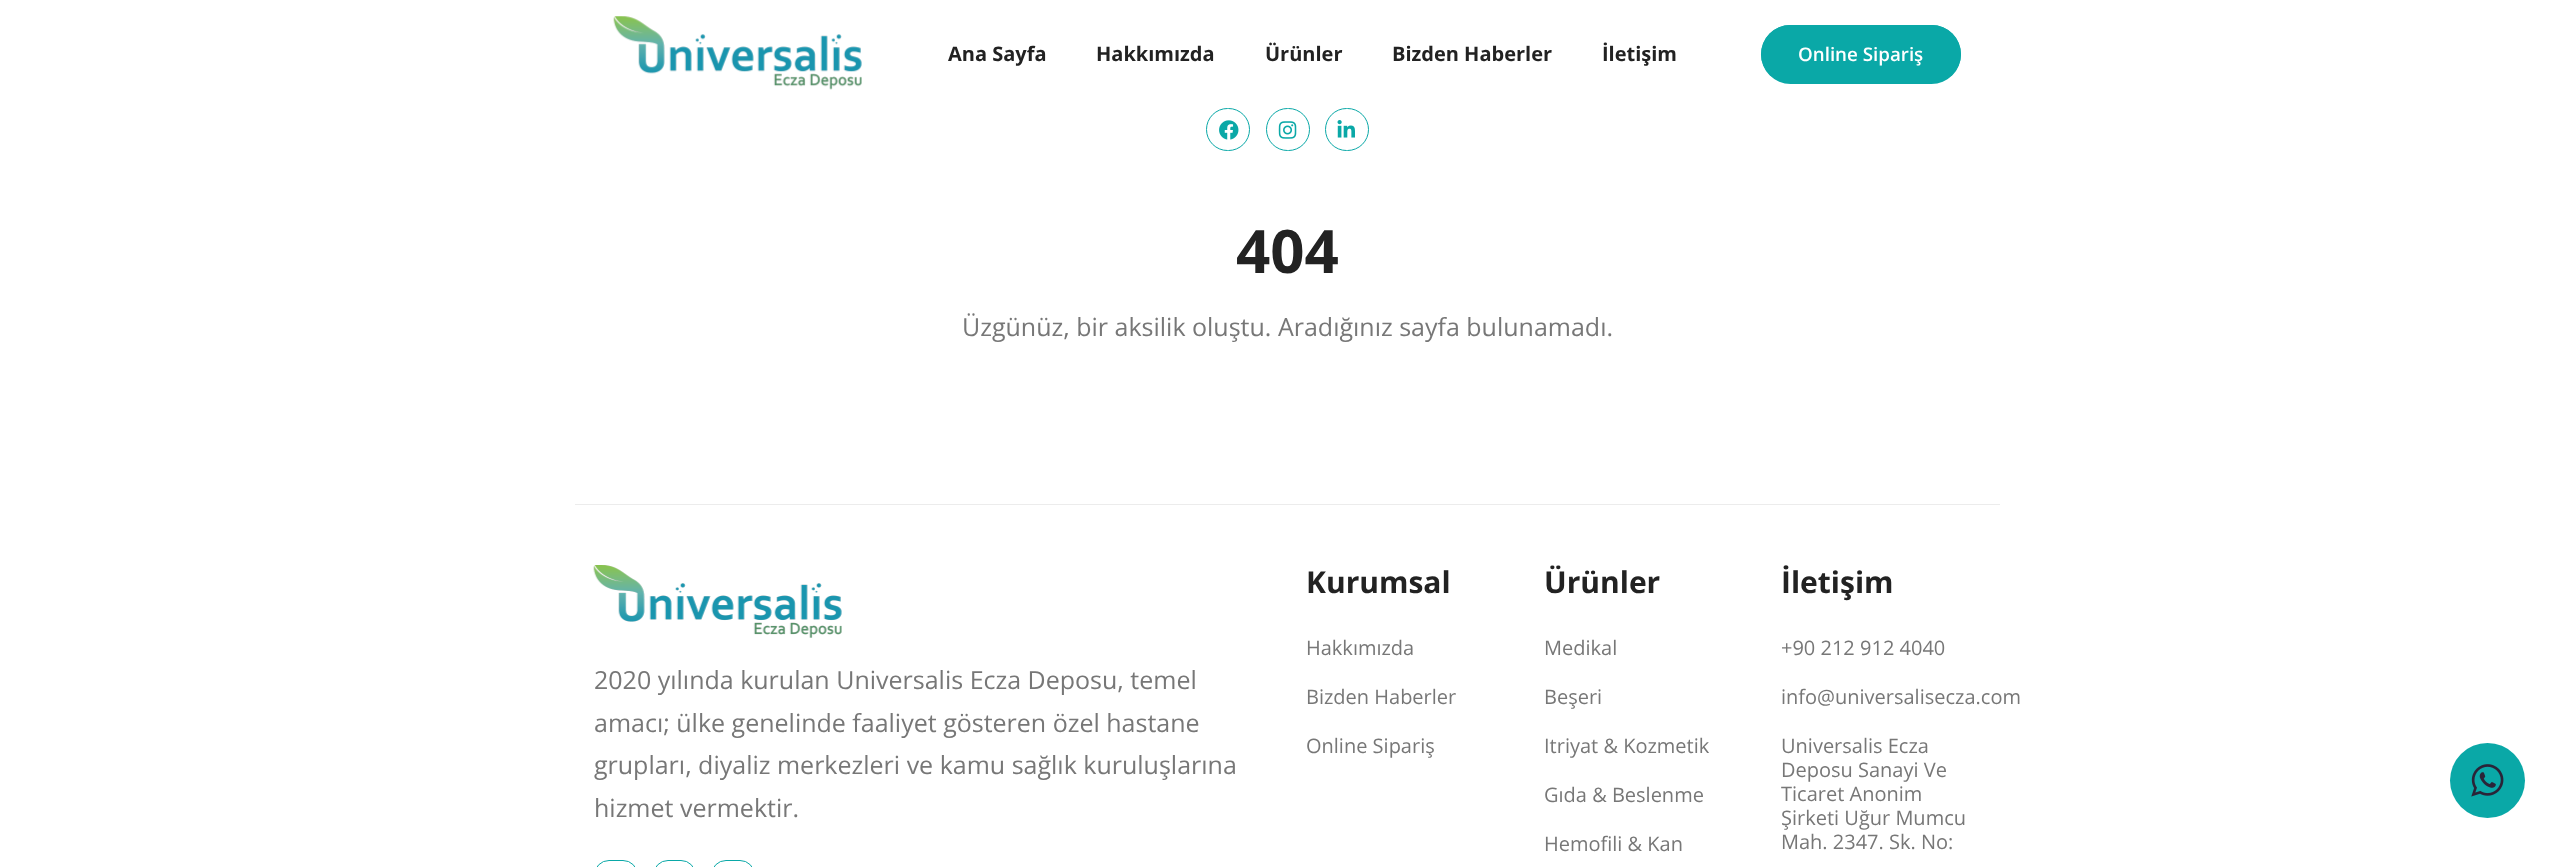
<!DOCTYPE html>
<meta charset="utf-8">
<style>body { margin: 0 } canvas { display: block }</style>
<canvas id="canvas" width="2575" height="867"></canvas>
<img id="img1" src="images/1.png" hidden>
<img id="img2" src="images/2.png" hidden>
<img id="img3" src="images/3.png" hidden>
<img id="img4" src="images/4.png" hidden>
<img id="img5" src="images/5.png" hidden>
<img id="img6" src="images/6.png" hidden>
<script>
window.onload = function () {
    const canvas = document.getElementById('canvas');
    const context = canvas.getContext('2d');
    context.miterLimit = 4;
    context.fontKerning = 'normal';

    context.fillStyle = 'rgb(255, 255, 255)';
    context.fillRect(0, 0, 2575, 867);
    context.drawImage(document.getElementById('img1'), 613, 16, 249, 74);
    context.fillStyle = 'rgb(10, 168, 167)';
    context.beginPath();
    context.roundRect(1761, 25, 200, 58, 29);
    context.fill();
    context.beginPath();
    context.roundRect(1761, 25, 200, 59, 29.5);
    context.fill();
    context.beginPath();
    context.roundRect(1206.5, 108.5, 43, 42, 21);
    context.strokeStyle = 'rgb(10, 168, 167)';
    context.stroke();
    context.drawImage(document.getElementById('img2'), 1219, 120, 20, 20);
    context.beginPath();
    context.roundRect(1266.5, 108.5, 43, 42, 21);
    context.stroke();
    context.drawImage(document.getElementById('img3'), 1278, 121, 19, 18);
    context.beginPath();
    context.roundRect(1325.5, 108.5, 43, 42, 21);
    context.stroke();
    context.drawImage(document.getElementById('img4'), 1337, 120, 18, 18);
    context.fillStyle = 'rgb(236, 236, 236)';
    context.fillRect(575, 504, 1425, 1);
    context.drawImage(document.getElementById('img5'), 593, 565, 249, 73);
    context.beginPath();
    context.roundRect(594.5, 860.5, 43, 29, 21.5);
    context.stroke();
    context.beginPath();
    context.roundRect(653.5, 860.5, 42, 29, 21);
    context.stroke();
    context.beginPath();
    context.roundRect(711.5, 860.5, 43, 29, 21.5);
    context.stroke();
    context.fillStyle = 'rgb(10, 168, 167)';
    context.beginPath();
    context.arc(2487.5, 780.5, 37.5, 0, 2 * Math.PI);
    context.fill();
    context.drawImage(document.getElementById('img6'), 2471, 764, 33, 33);
    context.font = 'bold 20px Open Sans';
    context.fillStyle = 'rgb(34, 34, 34)';
    context.fillText('Ana Sayfa', 948, 61);
    context.fillText('Hakkımızda', 1096, 61);
    context.fillText('Ürünler', 1265, 61);
    context.fillText('Bizden Haberler', 1392, 61);
    context.fillText('İletişim', 1602, 61);
    context.font = '600 18.75px Open Sans';
    context.fillStyle = 'rgb(255, 255, 255)';
    context.fillText('Online Sipariş', 1798, 61);
    context.font = 'bold 60px Open Sans';
    context.fillStyle = 'rgb(34, 34, 34)';
    context.fillText('404', 1236, 273);
    context.font = '25px Open Sans';
    context.fillStyle = 'rgb(119, 119, 119)';
    context.fillText('Üzgünüz, bir aksilik oluştu. Aradığınız sayfa bulunamadı.', 962, 336);
    context.fillText('2020 yılında kurulan Universalis Ecza Deposu, temel', 594, 689);
    context.fillText('amacı; ülke genelinde faaliyet gösteren özel hastane', 594, 732);
    context.fillText('grupları, diyaliz merkezleri ve kamu sağlık kuruluşlarına', 594, 774);
    context.fillText('hizmet vermektir.', 594, 817);
    context.font = 'bold 30px Open Sans';
    context.fillStyle = 'rgb(34, 34, 34)';
    context.fillText('Kurumsal', 1306, 593);
    context.font = '20px Open Sans';
    context.fillStyle = 'rgb(119, 119, 119)';
    context.fillText('Hakkımızda', 1306, 655);
    context.fillText('Bizden Haberler', 1306, 704);
    context.fillText('Online Sipariş', 1306, 753);
    context.font = 'bold 30px Open Sans';
    context.fillStyle = 'rgb(34, 34, 34)';
    context.fillText('Ürünler', 1544, 593);
    context.font = '20px Open Sans';
    context.fillStyle = 'rgb(119, 119, 119)';
    context.fillText('Medikal', 1544, 655);
    context.fillText('Beşeri', 1544, 704);
    context.fillText('Itriyat & Kozmetik', 1544, 753);
    context.fillText('Gıda & Beslenme', 1544, 802);
    context.fillText('Hemofili & Kan', 1544, 851);
    context.font = 'bold 30px Open Sans';
    context.fillStyle = 'rgb(34, 34, 34)';
    context.fillText('İletişim', 1781, 593);
    context.font = '20px Open Sans';
    context.fillStyle = 'rgb(119, 119, 119)';
    context.fillText('+90 212 912 4040', 1781, 655);
    context.fillText('info@universalisecza.com', 1781, 704);
    context.fillText('Universalis Ecza', 1781, 753);
    context.fillText('Deposu Sanayi Ve', 1781, 777);
    context.fillText('Ticaret Anonim', 1781, 801);
    context.fillText('Şirketi Uğur Mumcu', 1781, 825);
    context.fillText('Mah. 2347. Sk. No:', 1781, 849);
};
</script>
